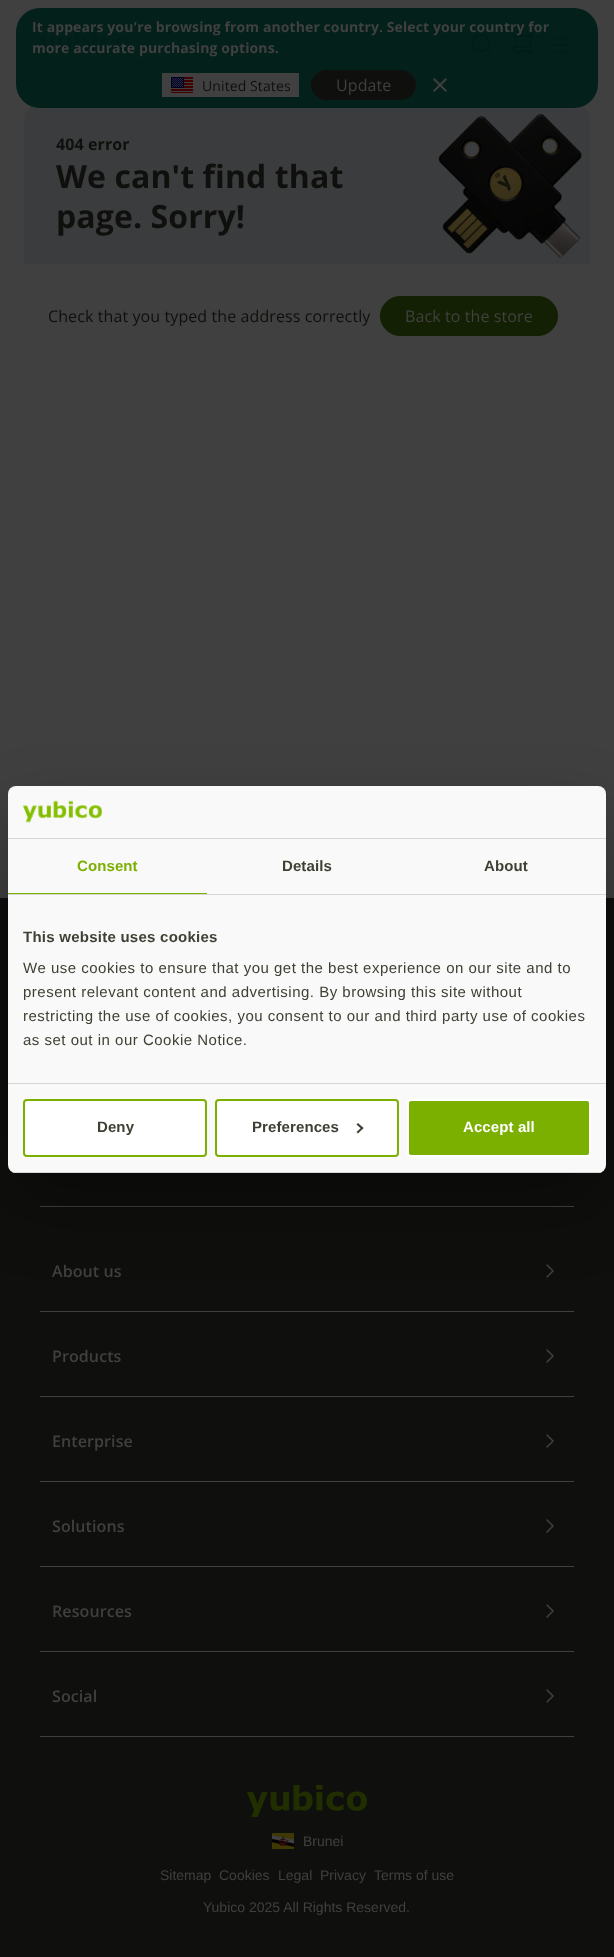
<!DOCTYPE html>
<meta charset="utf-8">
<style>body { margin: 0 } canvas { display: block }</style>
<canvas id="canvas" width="614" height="1957"></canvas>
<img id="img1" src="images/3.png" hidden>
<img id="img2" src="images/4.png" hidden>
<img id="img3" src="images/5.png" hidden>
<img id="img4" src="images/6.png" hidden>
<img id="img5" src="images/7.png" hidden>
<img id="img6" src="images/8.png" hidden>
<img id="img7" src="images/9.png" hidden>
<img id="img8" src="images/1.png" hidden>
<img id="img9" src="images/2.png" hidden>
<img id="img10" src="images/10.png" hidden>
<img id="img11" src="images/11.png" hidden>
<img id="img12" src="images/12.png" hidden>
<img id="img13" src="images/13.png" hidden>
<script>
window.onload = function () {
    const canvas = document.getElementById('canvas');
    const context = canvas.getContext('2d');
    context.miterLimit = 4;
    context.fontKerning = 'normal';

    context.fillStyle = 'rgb(64, 64, 64)';
    context.fillRect(0, 0, 614, 1957);
    context.drawImage(document.getElementById('img1'), 40, 32, 90, 24);
    context.drawImage(document.getElementById('img2'), 472, 34, 20, 20);
    context.drawImage(document.getElementById('img3'), 472, 34, 20, 20);
    context.drawImage(document.getElementById('img4'), 472, 34, 20, 20);
    context.drawImage(document.getElementById('img5'), 511, 33, 22, 22);
    context.drawImage(document.getElementById('img6'), 511, 33, 22, 22);
    context.drawImage(document.getElementById('img7'), 552, 37, 20, 16);
    context.fillStyle = 'rgb(59, 60, 61)';
    context.beginPath();
    context.roundRect(24, 104, 566, 160, [16, 16, 0, 0]);
    context.fill();
    context.fillStyle = 'rgba(0, 31, 25, 0.95)';
    context.beginPath();
    context.roundRect(16, 8, 582, 100, 24);
    context.fill();
    context.fillStyle = 'rgb(64, 64, 64)';
    context.fillRect(162, 73, 137, 24);
    context.drawImage(document.getElementById('img8'), 171, 77, 22, 16);
    context.fillStyle = 'rgb(15, 16, 13)';
    context.beginPath();
    context.roundRect(311.5, 70.5, 104, 29, 14.5);
    context.fill();
    context.strokeStyle = 'rgb(15, 16, 13)';
    context.stroke();
    context.drawImage(document.getElementById('img9'), 433, 78, 14, 14);
    context.drawImage(document.getElementById('img10'), 438, 113, 144, 145);
    context.fillStyle = 'rgb(20, 32, 3)';
    context.beginPath();
    context.roundRect(380.5, 296.5, 177, 39, 19.5);
    context.fill();
    context.strokeStyle = 'rgb(20, 32, 3)';
    context.stroke();
    context.fillStyle = 'rgb(15, 16, 13)';
    context.fillRect(0, 898, 614, 1059);
    context.fillStyle = 'rgb(64, 64, 64)';
    context.fillRect(40, 1206, 534, 1);
    context.fillRect(40, 1736, 534, 1);
    context.fillRect(40, 1311, 534, 1);
    context.beginPath();
    context.moveTo(547, 1265);
    context.lineTo(553, 1271);
    context.lineTo(547, 1277);
    context.strokeStyle = 'rgb(64, 64, 64)';
    context.lineWidth = 1.5;
    context.lineCap = 'round';
    context.lineJoin = 'round';
    context.stroke();
    context.fillRect(40, 1396, 534, 1);
    context.beginPath();
    context.moveTo(547, 1350);
    context.lineTo(553, 1356);
    context.lineTo(547, 1362);
    context.stroke();
    context.fillRect(40, 1481, 534, 1);
    context.beginPath();
    context.moveTo(547, 1435);
    context.lineTo(553, 1441);
    context.lineTo(547, 1447);
    context.stroke();
    context.fillRect(40, 1566, 534, 1);
    context.beginPath();
    context.moveTo(547, 1520);
    context.lineTo(553, 1526);
    context.lineTo(547, 1532);
    context.stroke();
    context.fillRect(40, 1651, 534, 1);
    context.beginPath();
    context.moveTo(547, 1605);
    context.lineTo(553, 1611);
    context.lineTo(547, 1617);
    context.stroke();
    context.beginPath();
    context.moveTo(547, 1690);
    context.lineTo(553, 1696);
    context.lineTo(547, 1702);
    context.stroke();
    context.drawImage(document.getElementById('img11'), 247, 1785, 120, 32);
    context.drawImage(document.getElementById('img12'), 272, 1833, 22, 16);
    context.fillStyle = 'rgba(0, 0, 0, 0.3)';
    context.filter = 'blur(34px)';
    context.beginPath();
    context.roundRect(8, 818, 598, 387, 8);
    context.fill();
    context.filter = 'none';
    context.fillStyle = 'rgb(249, 249, 249)';
    context.beginPath();
    context.roundRect(8, 786, 598, 387, 8);
    context.fill();
    context.fillStyle = 'rgb(214, 214, 214)';
    context.fillRect(8, 838, 598, 1);
    context.drawImage(document.getElementById('img13'), 23, 800, 79, 23);
    context.fillRect(8, 894, 598, 1);
    context.fillStyle = 'rgb(123, 175, 0)';
    context.fillRect(8, 893, 199, 1);
    context.fillStyle = 'rgb(214, 214, 214)';
    context.fillRect(8, 1083, 598, 1);
    context.save();
    context.beginPath();
    context.roundRect(8, 786, 598, 387, 8);
    context.clip();
    context.fillRect(8, 1172, 598, 1);
    context.restore();
    context.fillStyle = 'rgb(255, 255, 255)';
    context.beginPath();
    context.roundRect(24, 1100, 182, 56, 3);
    context.fill();
    context.strokeStyle = 'rgb(123, 175, 0)';
    context.lineWidth = 2;
    context.lineJoin = 'miter';
    context.stroke();
    context.beginPath();
    context.roundRect(216, 1100, 182, 56, 3);
    context.fill();
    context.stroke();
    context.fillStyle = 'rgb(61, 65, 51)';
    context.beginPath();
    context.moveTo(358, 1123);
    context.lineTo(363.5, 1128);
    context.lineTo(362, 1129.5);
    context.lineTo(356.5, 1124.5);
    context.closePath();
    context.fill();
    context.beginPath();
    context.moveTo(362, 1127);
    context.lineTo(363.5, 1128);
    context.lineTo(358, 1133.5);
    context.lineTo(356.5, 1132);
    context.closePath();
    context.fill();
    context.fillStyle = 'rgb(123, 175, 0)';
    context.beginPath();
    context.roundRect(408, 1100, 182, 56, 3);
    context.fill();
    context.strokeStyle = 'rgb(255, 255, 255)';
    context.stroke();
    context.letterSpacing = '0.1px';
    context.font = 'bold 14px Open Sans';
    context.fillStyle = 'rgb(64, 64, 64)';
    context.fillText('It appears you\'re browsing from another country. Select your country for', 32, 32);
    context.fillText('more accurate purchasing options.', 32, 53);
    context.font = '14px Open Sans';
    context.fillStyle = 'rgb(15, 16, 13)';
    context.fillText('United States', 202, 91);
    context.font = '16px Open Sans';
    context.fillStyle = 'rgb(64, 64, 64)';
    context.fillText('Update', 336, 91);
    context.font = 'bold 16px Open Sans';
    context.fillStyle = 'rgb(15, 16, 13)';
    context.fillText('404 error', 56, 150);
    context.font = 'bold 32px Open Sans';
    context.fillText('We can\'t find that', 56, 188);
    context.fillText('page. Sorry!', 56, 228);
    context.font = '16px Open Sans';
    context.fillText('Check that you typed the address correctly', 48, 322);
    context.fillStyle = 'rgb(64, 64, 64)';
    context.fillText('Back to the store', 405, 322);
    context.font = '600 16px Open Sans';
    context.fillText('About us', 52, 1277);
    context.fillText('Products', 52, 1362);
    context.fillText('Enterprise', 52, 1447);
    context.fillText('Solutions', 52, 1532);
    context.fillText('Resources', 52, 1617);
    context.fillText('Social', 52, 1702);
    context.letterSpacing = '0px';
    context.font = '14px Liberation Sans';
    context.fillText('Brunei', 303, 1846);
    context.fillText('Sitemap', 160, 1880);
    context.fillText('Cookies', 219, 1880);
    context.fillText('Legal', 278, 1880);
    context.fillText('Privacy', 320, 1880);
    context.fillText('Terms of use', 374, 1880);
    context.fillText('Yubico 2025 All Rights Reserved.', 203, 1912);
    context.letterSpacing = '0.1px';
    context.font = 'bold 15px Liberation Sans';
    context.fillStyle = 'rgb(123, 175, 0)';
    context.fillText('Consent', 77, 871);
    context.fillStyle = 'rgb(61, 65, 51)';
    context.fillText('Details', 282, 871);
    context.fillText('About', 484, 871);
    context.letterSpacing = '0.25px';
    context.fillText('This website uses cookies', 23, 942);
    context.letterSpacing = '0.5px';
    context.font = '15px Liberation Sans';
    context.fillText('We use cookies to ensure that you get the best experience on our site and to', 23, 973);
    context.fillText('present relevant content and advertising. By browsing this site without', 23, 997);
    context.fillText('restricting the use of cookies, you consent to our and third party use of cookies', 23, 1021);
    context.fillText('as set out in our Cookie Notice.', 23, 1045);
    context.letterSpacing = '0.1px';
    context.font = 'bold 15px Liberation Sans';
    context.fillText('Deny', 97, 1132);
    context.fillText('Preferences', 252, 1132);
    context.fillStyle = 'rgb(255, 255, 255)';
    context.fillText('Accept all', 463, 1132);
};
</script>
